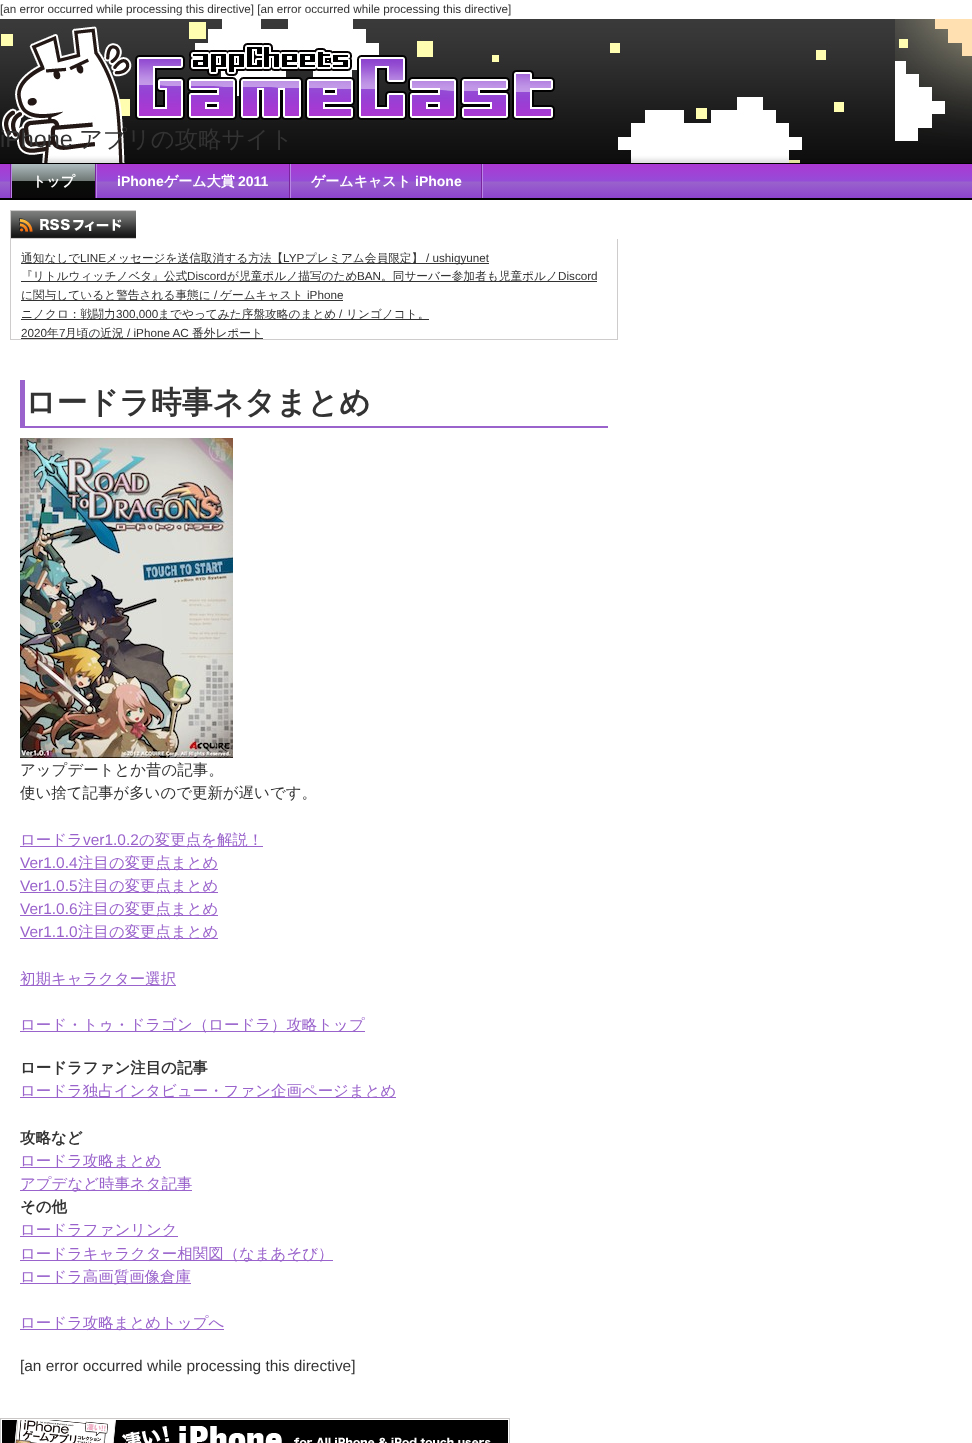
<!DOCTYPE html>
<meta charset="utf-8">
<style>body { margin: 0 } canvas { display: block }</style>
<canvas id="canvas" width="972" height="1443"></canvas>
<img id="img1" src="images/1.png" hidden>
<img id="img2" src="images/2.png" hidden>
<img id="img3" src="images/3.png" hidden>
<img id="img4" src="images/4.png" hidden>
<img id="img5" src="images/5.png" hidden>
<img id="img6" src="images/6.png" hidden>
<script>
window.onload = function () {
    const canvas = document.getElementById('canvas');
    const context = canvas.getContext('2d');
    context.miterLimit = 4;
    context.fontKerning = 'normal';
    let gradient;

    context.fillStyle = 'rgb(255, 255, 255)';
    context.fillRect(0, 0, 972, 1443);
    context.drawImage(document.getElementById('img1'), 0, 19, 972, 144);
    context.drawImage(document.getElementById('img2'), 895, 19, 77, 135);
    context.drawImage(document.getElementById('img3'), 1, 19, 894, 144);
    gradient = context.createLinearGradient(486, 164, 486, 198);
    gradient.addColorStop(0, 'rgb(171, 56, 211)');
    gradient.addColorStop(0.51, 'rgb(149, 76, 216)');
    gradient.addColorStop(0.52, 'rgb(154, 99, 204)');
    gradient.addColorStop(1, 'rgb(141, 67, 207)');
    context.fillStyle = gradient;
    context.fillRect(0, 164, 972, 34);
    context.fillStyle = 'rgb(0, 0, 0)';
    context.fillRect(0, 163, 972, 1);
    context.fillRect(0, 198, 972, 2);
    context.fillStyle = 'rgb(185, 134, 231)';
    context.fillRect(482, 164, 1, 34);
    context.fillStyle = 'rgb(122, 36, 158)';
    context.fillRect(10, 164, 1, 34);
    context.fillRect(95, 164, 1, 34);
    context.fillStyle = 'rgb(185, 134, 231)';
    context.fillRect(11, 164, 1, 34);
    gradient = context.createLinearGradient(54, 164, 54, 198);
    gradient.addColorStop(0, 'rgb(174, 188, 191)');
    gradient.addColorStop(0.5, 'rgb(110, 119, 116)');
    gradient.addColorStop(0.51, 'rgb(10, 14, 10)');
    gradient.addColorStop(1, 'rgb(10, 8, 9)');
    context.fillStyle = gradient;
    context.fillRect(12, 164, 83, 34);
    context.fillStyle = 'rgb(122, 36, 158)';
    context.fillRect(289, 164, 1, 34);
    context.fillStyle = 'rgb(185, 134, 231)';
    context.fillRect(96, 164, 1, 34);
    context.fillStyle = 'rgb(122, 36, 158)';
    context.fillRect(481, 164, 1, 34);
    context.fillStyle = 'rgb(185, 134, 231)';
    context.fillRect(290, 164, 1, 34);
    context.drawImage(document.getElementById('img4'), 10, 210, 126, 29);
    context.fillStyle = 'rgb(206, 204, 204)';
    context.fillRect(617, 239, 1, 101);
    context.fillRect(10, 339, 608, 1);
    context.fillRect(10, 239, 1, 101);
    context.fillStyle = 'rgb(51, 51, 51)';
    context.fillRect(21, 263, 468, 1);
    context.fillRect(21, 281, 576, 1);
    context.fillRect(21, 300, 322, 1);
    context.fillRect(21, 319, 408, 1);
    context.fillRect(21, 338, 242, 1);
    context.fillStyle = 'rgb(154, 99, 204)';
    context.fillRect(20, 426, 588, 2);
    context.fillRect(20, 380, 5, 48);
    context.drawImage(document.getElementById('img5'), 20, 438, 213, 320);
    context.fillRect(20, 846, 243, 1);
    context.fillRect(20, 869, 198, 1);
    context.fillRect(20, 892, 198, 1);
    context.fillRect(20, 915, 198, 1);
    context.fillRect(20, 938, 198, 1);
    context.fillRect(20, 985, 156, 1);
    context.fillRect(20, 1031, 345, 1);
    context.fillRect(20, 1097, 376, 1);
    context.fillRect(20, 1167, 141, 1);
    context.fillRect(20, 1190, 172, 1);
    context.fillRect(20, 1236, 158, 1);
    context.fillRect(20, 1260, 313, 1);
    context.fillRect(20, 1283, 171, 1);
    context.fillRect(20, 1329, 204, 1);
    context.drawImage(document.getElementById('img6'), 0, 1418, 510, 25);
    context.font = '11.7px Liberation Sans';
    context.fillStyle = 'rgb(51, 51, 51)';
    context.fillText('[an error occurred while processing this directive] [an error occurred while processing this directive]', 0, 13);
    context.font = '23.4px Liberation Sans';
    context.fillText('iPhone', 0, 147);
    context.font = '500 23.4px WenQuanYi Zen Hei';
    context.fillText('アプリの攻略サイト', 79, 147);
    context.font = 'bold 14px WenQuanYi Zen Hei';
    context.fillStyle = 'rgb(255, 255, 255)';
    context.fillText('トップ', 32, 186);
    context.font = 'bold 14px Liberation Sans';
    context.fillText('iPhone', 117, 186);
    context.font = 'bold 14px WenQuanYi Zen Hei';
    context.fillText('ゲーム大賞', 164, 186);
    context.font = 'bold 14px Liberation Sans';
    context.fillText('2011', 238, 186);
    context.font = 'bold 14px WenQuanYi Zen Hei';
    context.fillText('ゲームキャスト', 311, 186);
    context.font = 'bold 14px Liberation Sans';
    context.fillText('iPhone', 415, 186);
    context.font = '500 11.7px WenQuanYi Zen Hei';
    context.fillStyle = 'rgb(51, 51, 51)';
    context.fillText('通知なしで', 21, 262);
    context.font = '11.7px Liberation Sans';
    context.fillText('LINE', 80, 262);
    context.font = '500 11.7px WenQuanYi Zen Hei';
    context.fillText('メッセージを送信取消する方法【', 106, 262);
    context.font = '11.7px Liberation Sans';
    context.fillText('LYP', 283, 262);
    context.font = '500 11.7px WenQuanYi Zen Hei';
    context.fillText('プレミアム会員限定】', 305, 262);
    context.font = '11.7px Liberation Sans';
    context.fillText('/ ushigyunet', 426, 262);
    context.font = '500 11.7px WenQuanYi Zen Hei';
    context.fillText('『リトルウィッチノベタ』公式', 21, 280);
    context.font = '11.7px Liberation Sans';
    context.fillText('Discord', 187, 280);
    context.font = '500 11.7px WenQuanYi Zen Hei';
    context.fillText('が児童ポルノ描写のため', 227, 280);
    context.font = '11.7px Liberation Sans';
    context.fillText('BAN', 357, 280);
    context.font = '500 11.7px WenQuanYi Zen Hei';
    context.fillText('。同サーバー参加者も児童ポルノ', 381, 280);
    context.font = '11.7px Liberation Sans';
    context.fillText('Discord', 558, 280);
    context.font = '500 11.7px WenQuanYi Zen Hei';
    context.fillText('に関与していると警告される事態に', 21, 299);
    context.font = '11.7px Liberation Sans';
    context.fillText('/', 214, 299);
    context.font = '500 11.7px WenQuanYi Zen Hei';
    context.fillText('ゲームキャスト', 220, 299);
    context.font = '11.7px Liberation Sans';
    context.fillText('iPhone', 307, 299);
    context.font = '500 11.7px WenQuanYi Zen Hei';
    context.fillText('ニノクロ：戦闘力', 21, 318);
    context.font = '11.7px Liberation Sans';
    context.fillText('300,000', 116, 318);
    context.font = '500 11.7px WenQuanYi Zen Hei';
    context.fillText('までやってみた序盤攻略のまとめ', 158, 318);
    context.font = '11.7px Liberation Sans';
    context.fillText('/', 339, 318);
    context.font = '500 11.7px WenQuanYi Zen Hei';
    context.fillText('リンゴノコト。', 346, 318);
    context.font = '11.7px Liberation Sans';
    context.fillText('2020', 21, 337);
    context.font = '500 11.7px WenQuanYi Zen Hei';
    context.fillText('年', 47, 337);
    context.font = '11.7px Liberation Sans';
    context.fillText('7', 59, 337);
    context.font = '500 11.7px WenQuanYi Zen Hei';
    context.fillText('月頃の近況', 65, 337);
    context.font = '11.7px Liberation Sans';
    context.fillText('/ iPhone AC', 127, 337);
    context.font = '500 11.7px WenQuanYi Zen Hei';
    context.fillText('番外レポート', 192, 337);
    context.font = 'bold 30.9px WenQuanYi Zen Hei';
    context.fillText('ロードラ時事ネタまとめ', 25, 413);
    context.font = '500 15.45px WenQuanYi Zen Hei';
    context.fillText('アップデートとか昔の記事。', 20, 775);
    context.fillText('使い捨て記事が多いので更新が遅いです。', 20, 798);
    context.fillStyle = 'rgb(154, 99, 204)';
    context.fillText('ロードラ', 20, 845);
    context.font = '15.45px Liberation Sans';
    context.fillText('ver1.0.2', 83, 845);
    context.font = '500 15.45px WenQuanYi Zen Hei';
    context.fillText('の変更点を解説！', 139, 845);
    context.font = '15.45px Liberation Sans';
    context.fillText('Ver1.0.4', 20, 868);
    context.font = '500 15.45px WenQuanYi Zen Hei';
    context.fillText('注目の変更点まとめ', 78, 868);
    context.font = '15.45px Liberation Sans';
    context.fillText('Ver1.0.5', 20, 891);
    context.font = '500 15.45px WenQuanYi Zen Hei';
    context.fillText('注目の変更点まとめ', 78, 891);
    context.font = '15.45px Liberation Sans';
    context.fillText('Ver1.0.6', 20, 914);
    context.font = '500 15.45px WenQuanYi Zen Hei';
    context.fillText('注目の変更点まとめ', 78, 914);
    context.font = '15.45px Liberation Sans';
    context.fillText('Ver1.1.0', 20, 937);
    context.font = '500 15.45px WenQuanYi Zen Hei';
    context.fillText('注目の変更点まとめ', 78, 937);
    context.fillText('初期キャラクター選択', 20, 984);
    context.fillText('ロード・トゥ・ドラゴン（ロードラ）攻略トップ', 20, 1030);
    context.font = 'bold 15.45px WenQuanYi Zen Hei';
    context.fillStyle = 'rgb(51, 51, 51)';
    context.fillText('ロードラファン注目の記事', 20, 1073);
    context.font = '500 15.45px WenQuanYi Zen Hei';
    context.fillStyle = 'rgb(154, 99, 204)';
    context.fillText('ロードラ独占インタビュー・ファン企画ページまとめ', 20, 1096);
    context.font = 'bold 15.45px WenQuanYi Zen Hei';
    context.fillStyle = 'rgb(51, 51, 51)';
    context.fillText('攻略など', 20, 1143);
    context.font = '500 15.45px WenQuanYi Zen Hei';
    context.fillStyle = 'rgb(154, 99, 204)';
    context.fillText('ロードラ攻略まとめ', 20, 1166);
    context.fillText('アプデなど時事ネタ記事', 20, 1189);
    context.font = 'bold 15.45px WenQuanYi Zen Hei';
    context.fillStyle = 'rgb(51, 51, 51)';
    context.fillText('その他', 20, 1212);
    context.font = '500 15.45px WenQuanYi Zen Hei';
    context.fillStyle = 'rgb(154, 99, 204)';
    context.fillText('ロードラファンリンク', 20, 1235);
    context.fillText('ロードラキャラクター相関図（なまあそび）', 20, 1259);
    context.fillText('ロードラ高画質画像倉庫', 20, 1282);
    context.fillText('ロードラ攻略まとめトップへ', 20, 1328);
    context.font = '15.45px Liberation Sans';
    context.fillStyle = 'rgb(51, 51, 51)';
    context.fillText('[an error occurred while processing this directive]', 20, 1371);
};
</script>
